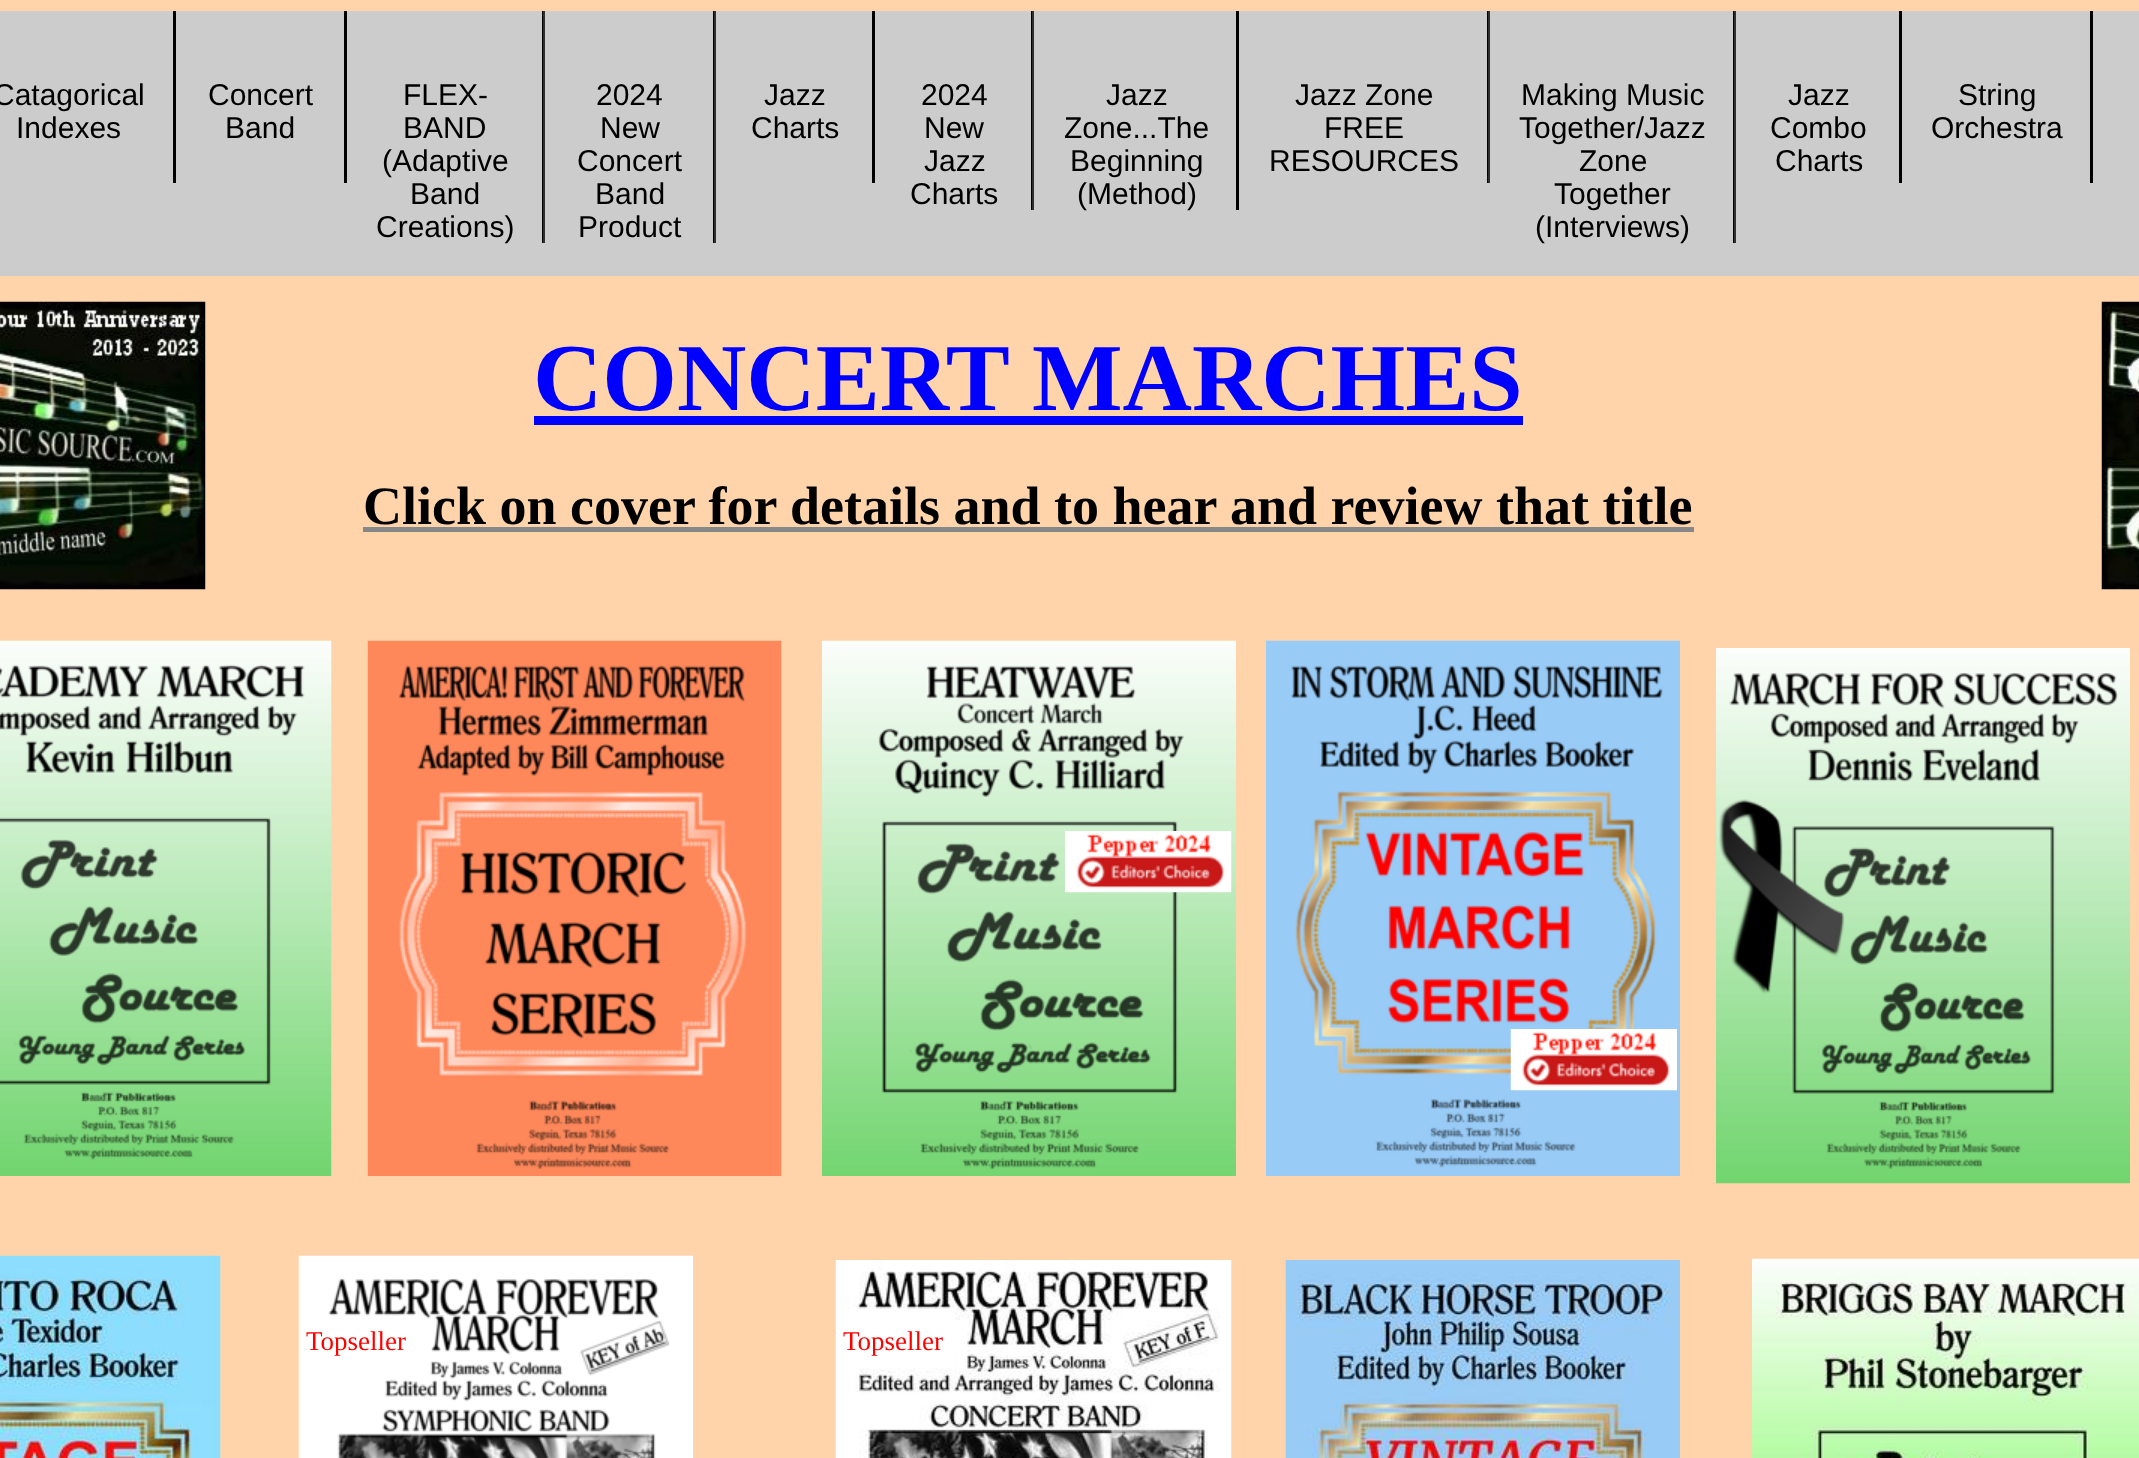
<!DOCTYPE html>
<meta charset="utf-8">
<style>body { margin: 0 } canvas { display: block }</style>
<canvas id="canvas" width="2139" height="1458"></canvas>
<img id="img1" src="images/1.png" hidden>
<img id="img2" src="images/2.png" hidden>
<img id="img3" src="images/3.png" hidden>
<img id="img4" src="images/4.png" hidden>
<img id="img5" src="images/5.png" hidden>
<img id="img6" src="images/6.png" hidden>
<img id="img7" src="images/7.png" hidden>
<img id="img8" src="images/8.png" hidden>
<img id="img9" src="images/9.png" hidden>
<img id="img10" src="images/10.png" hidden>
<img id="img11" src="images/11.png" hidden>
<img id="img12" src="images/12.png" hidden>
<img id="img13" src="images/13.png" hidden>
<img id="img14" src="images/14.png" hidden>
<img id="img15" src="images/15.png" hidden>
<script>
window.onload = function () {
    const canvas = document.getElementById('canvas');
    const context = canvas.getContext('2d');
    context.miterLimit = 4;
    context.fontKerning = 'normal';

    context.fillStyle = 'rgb(255, 212, 170)';
    context.fillRect(0, 0, 2139, 1458);
    context.fillStyle = 'rgb(204, 204, 204)';
    context.fillRect(0, 11, 2139, 265);
    context.fillStyle = 'rgb(0, 0, 0)';
    context.fillRect(173, 11, 3, 172);
    context.fillRect(344, 11, 3, 172);
    context.fillRect(542, 11, 1, 232);
    context.fillStyle = 'rgb(47, 47, 47)';
    context.fillRect(543, 11, 2, 232);
    context.fillStyle = 'rgb(0, 0, 0)';
    context.fillRect(713, 11, 1, 232);
    context.fillStyle = 'rgb(47, 47, 47)';
    context.fillRect(714, 11, 2, 232);
    context.fillStyle = 'rgb(0, 0, 0)';
    context.fillRect(872, 11, 3, 172);
    context.fillRect(1031, 11, 1, 199);
    context.fillStyle = 'rgb(47, 47, 47)';
    context.fillRect(1032, 11, 2, 199);
    context.fillStyle = 'rgb(0, 0, 0)';
    context.fillRect(1236, 11, 3, 199);
    context.fillRect(1487, 11, 1, 172);
    context.fillStyle = 'rgb(47, 47, 47)';
    context.fillRect(1488, 11, 2, 172);
    context.fillStyle = 'rgb(0, 0, 0)';
    context.fillRect(1733, 11, 1, 232);
    context.fillStyle = 'rgb(47, 47, 47)';
    context.fillRect(1734, 11, 2, 232);
    context.fillStyle = 'rgb(0, 0, 0)';
    context.fillRect(1899, 11, 3, 172);
    context.fillRect(2090, 11, 3, 172);
    context.drawImage(document.getElementById('img1'), 0, 301, 206, 289);
    context.fillStyle = 'rgb(0, 0, 255)';
    context.fillRect(534, 416, 989, 9);
    context.drawImage(document.getElementById('img2'), 2101, 301, 38, 289);
    context.fillStyle = 'rgb(135, 135, 135)';
    context.fillRect(363, 527, 1331, 5);
    context.drawImage(document.getElementById('img3'), 0, 640, 332, 536);
    context.drawImage(document.getElementById('img4'), 367, 640, 415, 536);
    context.drawImage(document.getElementById('img5'), 822, 640, 414, 536);
    context.drawImage(document.getElementById('img6'), 1266, 640, 414, 536);
    context.drawImage(document.getElementById('img7'), 1716, 648, 414, 536);
    context.drawImage(document.getElementById('img8'), 1065, 831, 167, 62);
    context.drawImage(document.getElementById('img9'), 1719, 799, 126, 195);
    context.drawImage(document.getElementById('img10'), 1510, 1029, 167, 62);
    context.drawImage(document.getElementById('img11'), 0, 1255, 221, 203);
    context.drawImage(document.getElementById('img12'), 298, 1255, 395, 203);
    context.drawImage(document.getElementById('img13'), 835, 1260, 397, 198);
    context.drawImage(document.getElementById('img14'), 1285, 1260, 395, 198);
    context.drawImage(document.getElementById('img15'), 1752, 1258, 387, 200);
    context.font = '30px Liberation Sans';
    context.fillStyle = 'rgb(0, 0, 0)';
    context.fillText('Catagorical', -7, 105);
    context.fillText('Indexes', 16, 138);
    context.fillText('Concert', 208, 105);
    context.fillText('Band', 225, 138);
    context.fillText('FLEX-', 403, 105);
    context.fillText('BAND', 403, 138);
    context.fillText('(Adaptive', 382, 171);
    context.fillText('Band', 410, 204);
    context.fillText('Creations)', 376, 237);
    context.fillText('2024', 596, 105);
    context.fillText('New', 600, 138);
    context.fillText('Concert', 577, 171);
    context.fillText('Band', 595, 204);
    context.fillText('Product', 578, 237);
    context.fillText('Jazz', 764, 105);
    context.fillText('Charts', 751, 138);
    context.fillText('2024', 921, 105);
    context.fillText('New', 924, 138);
    context.fillText('Jazz', 924, 171);
    context.fillText('Charts', 910, 204);
    context.fillText('Jazz', 1106, 105);
    context.fillText('Zone...The', 1064, 138);
    context.fillText('Beginning', 1070, 171);
    context.fillText('(Method)', 1077, 204);
    context.fillText('Jazz Zone', 1295, 105);
    context.fillText('FREE', 1324, 138);
    context.fillText('RESOURCES', 1269, 171);
    context.fillText('Making Music', 1521, 105);
    context.fillText('Together/Jazz', 1519, 138);
    context.fillText('Zone', 1579, 171);
    context.fillText('Together', 1554, 204);
    context.fillText('(Interviews)', 1535, 237);
    context.fillText('Jazz', 1788, 105);
    context.fillText('Combo', 1770, 138);
    context.fillText('Charts', 1775, 171);
    context.fillText('String', 1958, 105);
    context.fillText('Orchestra', 1931, 138);
    context.font = 'bold 96px Liberation Serif';
    context.fillStyle = 'rgb(0, 0, 255)';
    context.fillText('CONCERT MARCHES', 533, 410);
    context.font = 'bold 54px Liberation Serif';
    context.fillStyle = 'rgb(0, 0, 0)';
    context.fillText('Click on cover for details and to hear and review that title', 363, 524);
    context.font = '27px Liberation Serif';
    context.fillStyle = 'rgb(255, 0, 0)';
    context.fillText('Topseller', 306, 1350);
    context.fillText('Topseller', 843, 1350);
};
</script>
